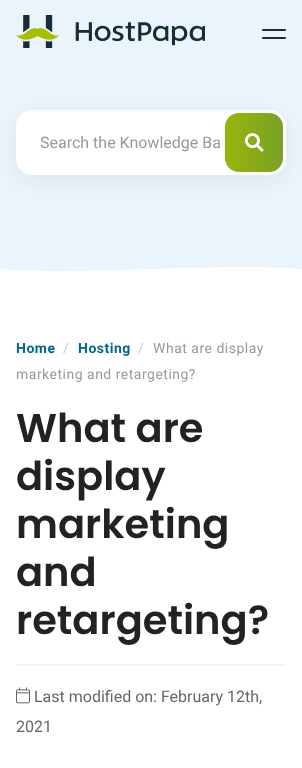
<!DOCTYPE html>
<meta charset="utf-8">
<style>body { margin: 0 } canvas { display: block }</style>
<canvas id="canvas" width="302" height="768"></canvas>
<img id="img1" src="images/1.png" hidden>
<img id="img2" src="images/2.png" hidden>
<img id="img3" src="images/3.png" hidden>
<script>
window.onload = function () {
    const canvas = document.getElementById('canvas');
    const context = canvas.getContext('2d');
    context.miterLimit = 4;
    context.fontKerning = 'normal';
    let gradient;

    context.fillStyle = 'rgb(255, 255, 255)';
    context.fillRect(0, 0, 302, 768);
    context.fillStyle = 'rgb(235, 244, 250)';
    context.fillRect(0, 0, 302, 262);
    context.drawImage(document.getElementById('img1'), 16, 15, 189, 33);
    context.fillStyle = 'rgb(24, 44, 58)';
    context.beginPath();
    context.roundRect(262, 29, 24, 2, 1);
    context.fill();
    context.beginPath();
    context.roundRect(262, 37, 24, 2, 1);
    context.fill();
    context.fillStyle = 'rgba(2, 20, 33, 0.06)';
    context.filter = 'blur(10px)';
    context.beginPath();
    context.roundRect(16, 116, 270, 65, 16);
    context.fill();
    context.filter = 'none';
    context.fillStyle = 'rgb(255, 255, 255)';
    context.beginPath();
    context.roundRect(16, 110, 270, 65, 16);
    context.fill();
    gradient = context.createLinearGradient(225, 143, 283, 143);
    gradient.addColorStop(0, 'rgb(152, 181, 11)');
    gradient.addColorStop(1, 'rgb(122, 161, 37)');
    context.fillStyle = gradient;
    context.beginPath();
    context.roundRect(225, 113, 58, 59, 14);
    context.fill();
    context.drawImage(document.getElementById('img2'), 245, 133, 19, 19);
    context.fillStyle = 'rgb(235, 244, 250)';
    context.beginPath();
    context.moveTo(0, 269);
    context.bezierCurveTo(91, 276, 211, 262, 302, 269);
    context.lineTo(302, 262);
    context.lineTo(0, 262);
    context.closePath();
    context.fill();
    context.fillStyle = 'rgb(243, 244, 245)';
    context.fillRect(16, 664, 270, 2);
    context.drawImage(document.getElementById('img3'), 16, 687, 14, 17);
    context.font = '16px Roboto';
    context.fillStyle = 'rgb(153, 153, 153)';
    context.fillText('Search the Knowledge Ba', 40, 148);
    context.letterSpacing = '0.5px';
    context.font = 'bold 14px Roboto';
    context.fillStyle = 'rgb(5, 102, 141)';
    context.fillText('Home', 16, 353);
    context.font = '14px Roboto';
    context.fillStyle = 'rgb(204, 204, 204)';
    context.fillText('/', 63, 353);
    context.font = 'bold 14px Roboto';
    context.fillStyle = 'rgb(5, 102, 141)';
    context.fillText('Hosting', 78, 353);
    context.font = '14px Roboto';
    context.fillStyle = 'rgb(204, 204, 204)';
    context.fillText('/', 138, 353);
    context.fillStyle = 'rgb(153, 153, 153)';
    context.fillText('What are display', 153, 353);
    context.fillText('marketing and retargeting?', 16, 379);
    context.letterSpacing = '0px';
    context.font = '600 40px Poppins';
    context.fillStyle = 'rgb(34, 34, 34)';
    context.fillText('What are', 16, 442);
    context.fillText('display', 16, 490);
    context.fillText('marketing', 16, 538);
    context.fillText('and', 16, 586);
    context.fillText('retargeting?', 16, 634);
    context.font = '16px Roboto';
    context.fillStyle = 'rgb(102, 102, 102)';
    context.fillText('Last modified on: February 12th,', 34, 702);
    context.fillText('2021', 16, 732);
};
</script>
